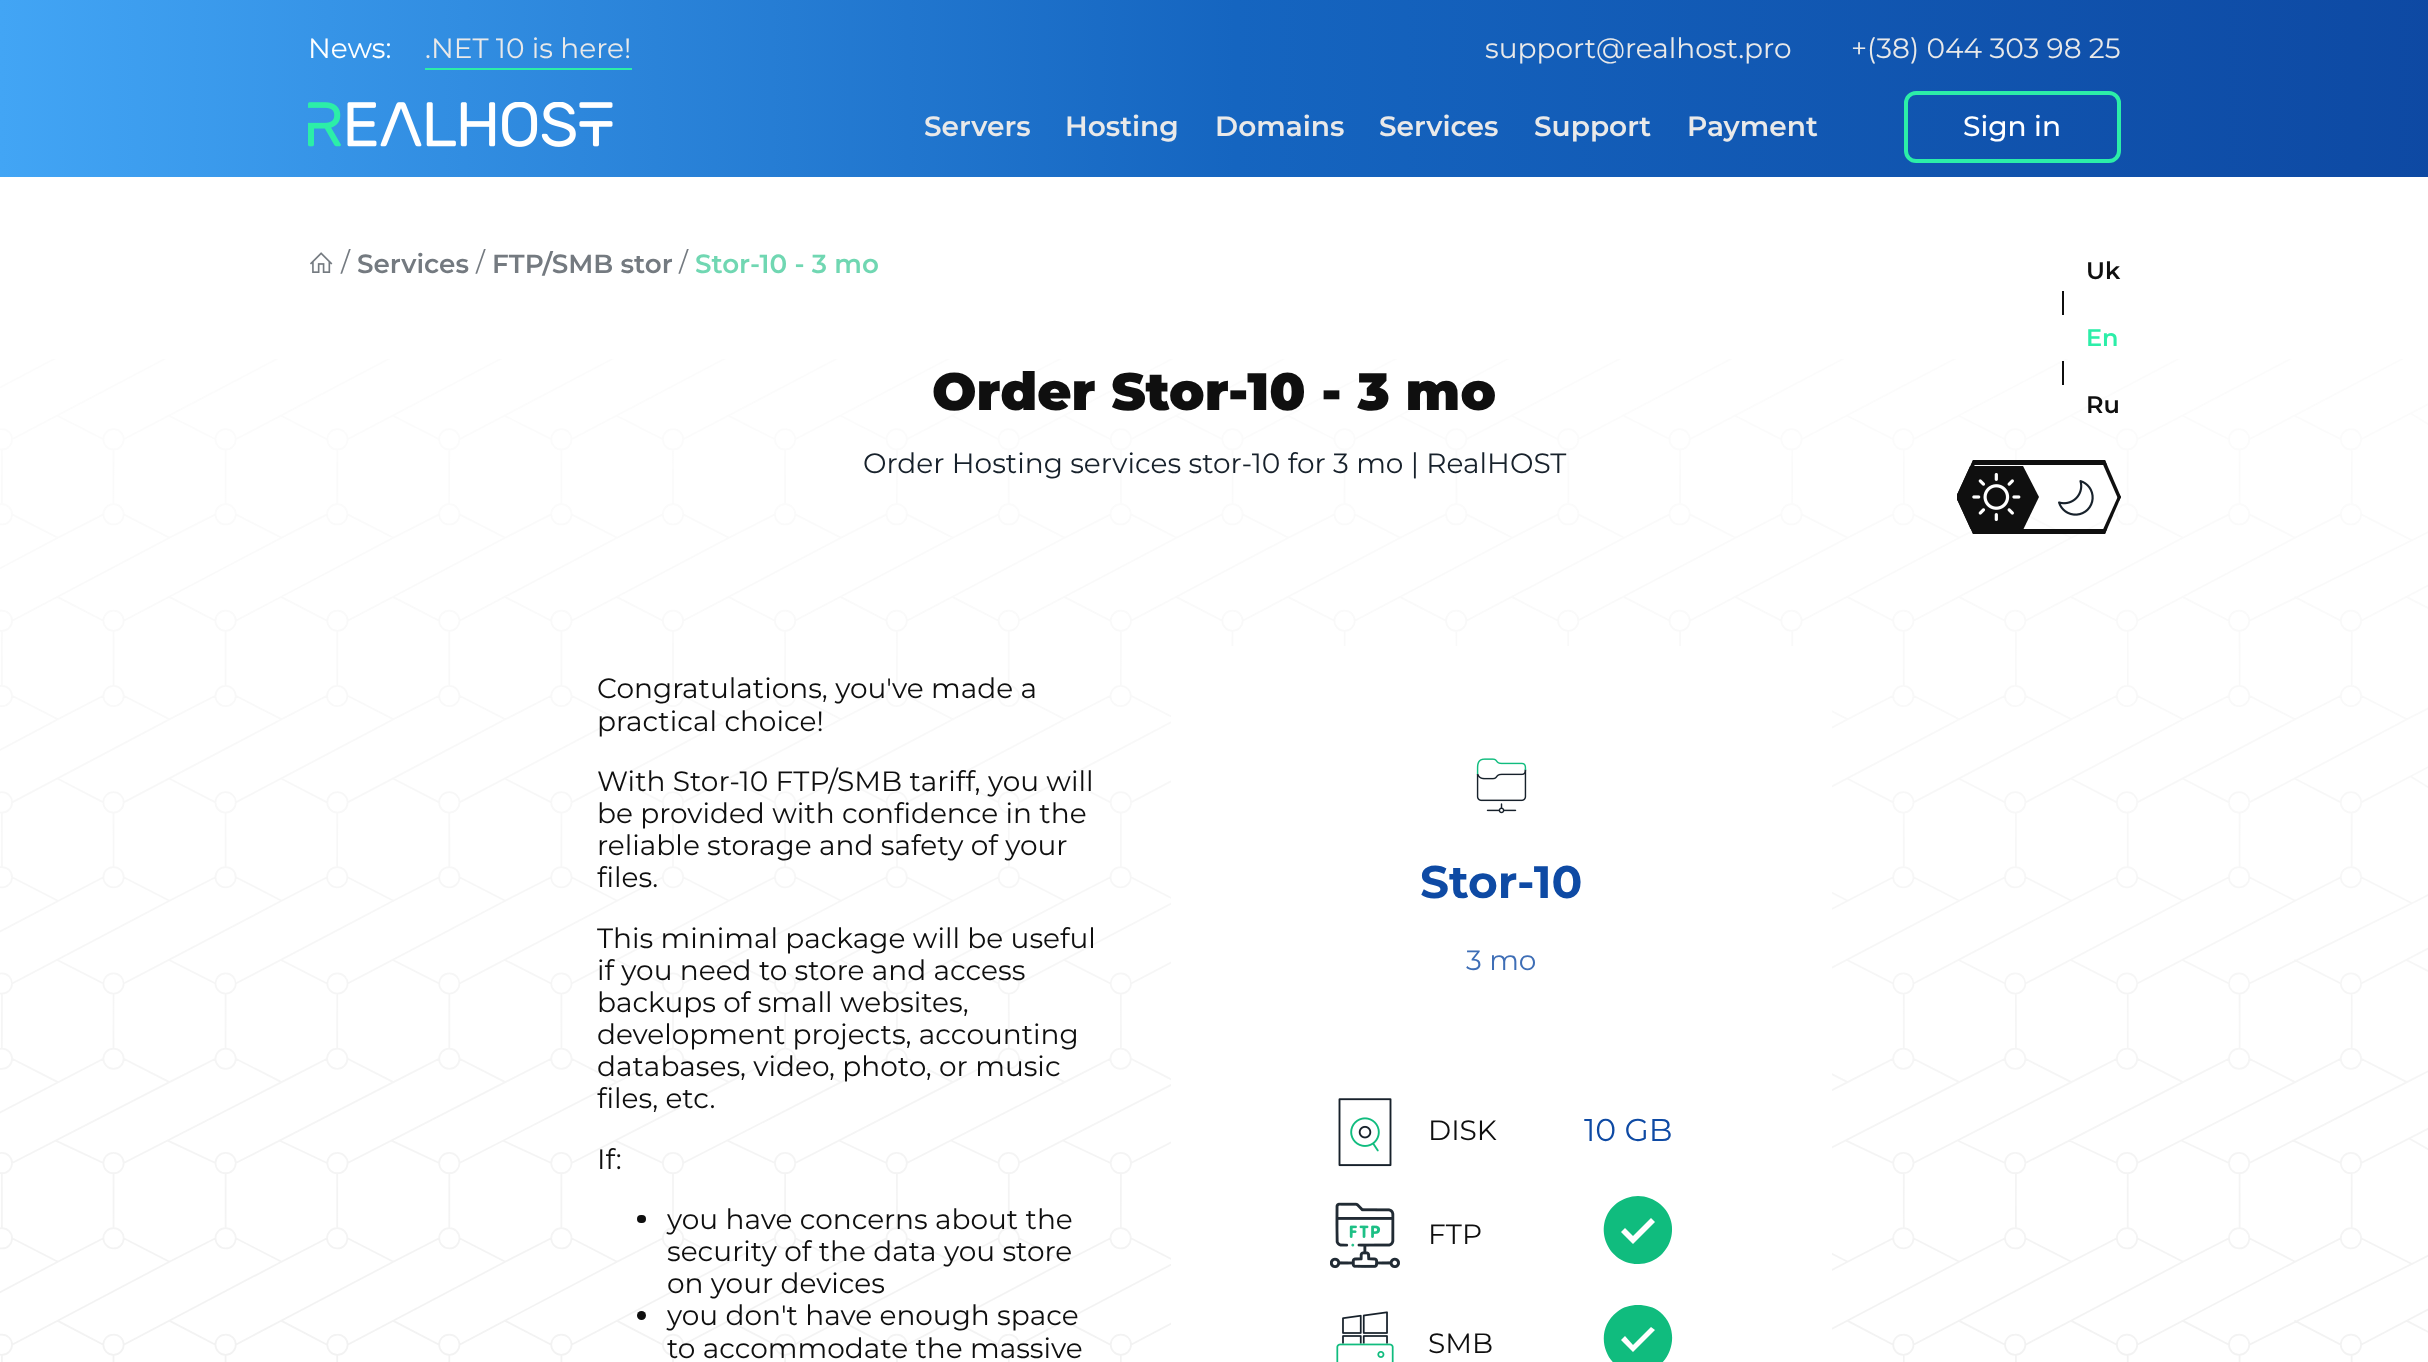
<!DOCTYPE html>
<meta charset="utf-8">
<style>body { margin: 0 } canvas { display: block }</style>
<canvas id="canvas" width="2428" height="1362"></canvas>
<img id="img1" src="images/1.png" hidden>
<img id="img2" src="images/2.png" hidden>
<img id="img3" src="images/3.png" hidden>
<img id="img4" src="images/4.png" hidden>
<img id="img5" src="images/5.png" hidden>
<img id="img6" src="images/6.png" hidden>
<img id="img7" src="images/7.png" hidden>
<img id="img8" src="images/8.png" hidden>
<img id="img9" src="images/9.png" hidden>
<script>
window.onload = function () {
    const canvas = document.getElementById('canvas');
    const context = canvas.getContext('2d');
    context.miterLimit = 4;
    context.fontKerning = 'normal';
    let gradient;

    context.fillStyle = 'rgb(255, 255, 255)';
    context.fillRect(0, 0, 2428, 1362);
    context.drawImage(document.getElementById('img1'), 0, 359, 2428, 1003);
    gradient = context.createLinearGradient(0, 88, 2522, 88);
    gradient.addColorStop(0, 'rgb(66, 165, 245)');
    gradient.addColorStop(0.49, 'rgb(21, 101, 192)');
    gradient.addColorStop(1, 'rgb(13, 71, 161)');
    context.fillStyle = gradient;
    context.fillRect(0, 0, 2428, 177);
    context.fillStyle = 'rgb(44, 238, 168)';
    context.fillRect(425, 68, 207, 2);
    context.drawImage(document.getElementById('img2'), 308, 102, 305, 45);
    context.beginPath();
    context.roundRect(1906, 93, 213, 68, 10);
    context.strokeStyle = 'rgb(44, 238, 168)';
    context.lineWidth = 4;
    context.stroke();
    context.drawImage(document.getElementById('img3'), 310, 252, 23, 21);
    context.fillStyle = 'rgb(15, 15, 15)';
    context.fillRect(2062, 291, 2, 24);
    context.fillRect(2062, 361, 2, 24);
    context.save();
    context.beginPath();
    context.rect(1957, 460, 164, 74);
    context.clip();
    context.beginPath();
    context.moveTo(1973, 460);
    context.lineTo(1977, 460);
    context.lineTo(1958, 501);
    context.lineTo(1956, 497);
    context.closePath();
    context.fill();
    context.beginPath();
    context.moveTo(1977, 534);
    context.lineTo(1973, 534);
    context.lineTo(1956, 497);
    context.lineTo(1958, 493);
    context.closePath();
    context.fill();
    context.restore();
    context.drawImage(document.getElementById('img4'), 2058, 480, 36, 36);
    context.beginPath();
    context.moveTo(1973, 460);
    context.lineTo(2105, 460);
    context.lineTo(2107, 465);
    context.lineTo(1971, 465);
    context.closePath();
    context.fill();
    context.beginPath();
    context.moveTo(2107, 529);
    context.lineTo(2105, 534);
    context.lineTo(1973, 534);
    context.lineTo(1971, 529);
    context.closePath();
    context.fill();
    context.save();
    context.beginPath();
    context.rect(1957, 466, 164, 63);
    context.clip();
    context.beginPath();
    context.moveTo(1971, 530);
    context.lineTo(1956, 497);
    context.lineTo(1971, 464);
    context.lineTo(2022, 464);
    context.lineTo(2039, 497);
    context.lineTo(2023, 530);
    context.closePath();
    context.fill();
    context.restore();
    context.drawImage(document.getElementById('img5'), 1972, 473, 49, 49);
    context.beginPath();
    context.moveTo(2119, 494);
    context.lineTo(2121, 497);
    context.lineTo(2105, 534);
    context.lineTo(2101, 534);
    context.closePath();
    context.fill();
    context.beginPath();
    context.moveTo(2101, 460);
    context.lineTo(2105, 460);
    context.lineTo(2121, 497);
    context.lineTo(2119, 501);
    context.closePath();
    context.fill();
    context.beginPath();
    context.roundRect(637, 1215, 9, 8, 4);
    context.fill();
    context.beginPath();
    context.arc(641.5, 1315.5, 4.5, 0, 2 * Math.PI);
    context.fill();
    context.fillStyle = 'rgb(255, 255, 255)';
    context.fillRect(1171, 646, 661, 716);
    context.drawImage(document.getElementById('img6'), 1476, 758, 51, 56);
    context.drawImage(document.getElementById('img7'), 1338, 1098, 54, 69);
    context.drawImage(document.getElementById('img8'), 1330, 1202, 70, 67);
    context.fillStyle = 'rgb(16, 188, 126)';
    context.beginPath();
    context.moveTo(1638, 1196);
    context.bezierCurveTo(1630, 1196, 1623, 1199, 1617, 1203);
    context.bezierCurveTo(1591, 1223, 1606, 1265, 1639, 1264);
    context.bezierCurveTo(1670, 1263, 1684, 1224, 1660, 1204);
    context.bezierCurveTo(1654, 1199, 1646, 1196, 1638, 1196);
    context.closePath();
    context.moveTo(1633, 1244);
    context.lineTo(1621, 1232);
    context.lineTo(1625, 1228);
    context.lineTo(1633, 1236);
    context.lineTo(1651, 1218);
    context.lineTo(1655, 1222);
    context.closePath();
    context.fill();
    context.drawImage(document.getElementById('img9'), 1336, 1311, 58, 51);
    context.beginPath();
    context.moveTo(1638, 1305);
    context.bezierCurveTo(1630, 1305, 1623, 1307, 1617, 1312);
    context.bezierCurveTo(1591, 1332, 1606, 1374, 1639, 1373);
    context.bezierCurveTo(1670, 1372, 1684, 1332, 1660, 1312);
    context.bezierCurveTo(1654, 1307, 1646, 1305, 1638, 1305);
    context.closePath();
    context.moveTo(1633, 1352);
    context.lineTo(1621, 1340);
    context.lineTo(1625, 1336);
    context.lineTo(1633, 1345);
    context.lineTo(1651, 1327);
    context.lineTo(1655, 1330);
    context.closePath();
    context.fill();
    context.font = '28px Montserrat';
    context.fillStyle = 'rgb(255, 255, 255)';
    context.fillText('News:', 308, 58);
    context.fillStyle = 'rgb(233, 233, 233)';
    context.fillText('.NET 10 is here!', 425, 58);
    context.fillText('support@realhost.pro', 1485, 58);
    context.fillText('+(38) 044 303 98 25', 1851, 58);
    context.font = '600 28px Montserrat';
    context.fillText('Servers', 924, 136);
    context.fillText('Hosting', 1065, 136);
    context.fillText('Domains', 1215, 136);
    context.fillText('Services', 1379, 136);
    context.fillText('Support', 1534, 136);
    context.fillText('Payment', 1687, 136);
    context.font = '500 28px Montserrat';
    context.fillStyle = 'rgb(255, 255, 255)';
    context.fillText('Sign in', 1963, 136);
    context.font = '26.25px Montserrat';
    context.fillStyle = 'rgb(116, 122, 128)';
    context.fillText('/', 341, 271);
    context.font = '600 26.25px Montserrat';
    context.fillText('Services', 357, 273);
    context.font = '26.25px Montserrat';
    context.fillText('/', 476, 271);
    context.font = '600 26.25px Montserrat';
    context.fillText('FTP/SMB stor', 492, 273);
    context.font = '26.25px Montserrat';
    context.fillText('/', 679, 271);
    context.font = '600 26.25px Montserrat';
    context.fillStyle = 'rgb(112, 215, 178)';
    context.fillText('Stor-10 - 3 mo', 695, 273);
    context.font = '600 24px Montserrat';
    context.fillStyle = 'rgb(15, 15, 15)';
    context.fillText('Uk', 2086, 279);
    context.fillStyle = 'rgb(44, 238, 168)';
    context.fillText('En', 2086, 346);
    context.fillStyle = 'rgb(15, 15, 15)';
    context.fillText('Ru', 2086, 413);
    context.font = '900 52.5px Montserrat';
    context.fillText('Order Stor-10 - 3 mo', 932, 410);
    context.font = '28px Montserrat';
    context.fillStyle = 'rgb(23, 33, 43)';
    context.fillText('Order Hosting services stor-10 for 3 mo | RealHOST', 863, 473);
    context.fillStyle = 'rgb(15, 15, 15)';
    context.fillText('Congratulations, you\'ve made a', 597, 698);
    context.fillText('practical choice!', 597, 731);
    context.fillText('With Stor-10 FTP/SMB tariff, you will', 597, 791);
    context.fillText('be provided with confidence in the', 597, 823);
    context.fillText('reliable storage and safety of your', 597, 855);
    context.fillText('files.', 597, 887);
    context.fillText('This minimal package will be useful', 597, 948);
    context.fillText('if you need to store and access', 597, 980);
    context.fillText('backups of small websites,', 597, 1012);
    context.fillText('development projects, accounting', 597, 1044);
    context.fillText('databases, video, photo, or music', 597, 1076);
    context.fillText('files, etc.', 597, 1108);
    context.fillText('If:', 597, 1169);
    context.fillText('you have concerns about the', 667, 1229);
    context.fillText('security of the data you store', 667, 1261);
    context.fillText('on your devices', 667, 1293);
    context.fillText('you don\'t have enough space', 667, 1325);
    context.fillText('to accommodate the massive', 667, 1358);
    context.font = 'bold 45.5px Montserrat';
    context.fillStyle = 'rgb(14, 74, 164)';
    context.fillText('Stor-10', 1420, 898);
    context.font = '28px Montserrat';
    context.fillStyle = 'rgb(62, 110, 182)';
    context.fillText('3 mo', 1466, 970);
    context.fillStyle = 'rgb(15, 15, 15)';
    context.fillText('DISK', 1428, 1140);
    context.font = '31.5px Montserrat';
    context.fillStyle = 'rgb(14, 74, 164)';
    context.fillText('10 GB', 1584, 1141);
    context.font = '28px Montserrat';
    context.fillStyle = 'rgb(15, 15, 15)';
    context.fillText('FTP', 1428, 1244);
    context.fillText('SMB', 1428, 1353);
};
</script>
